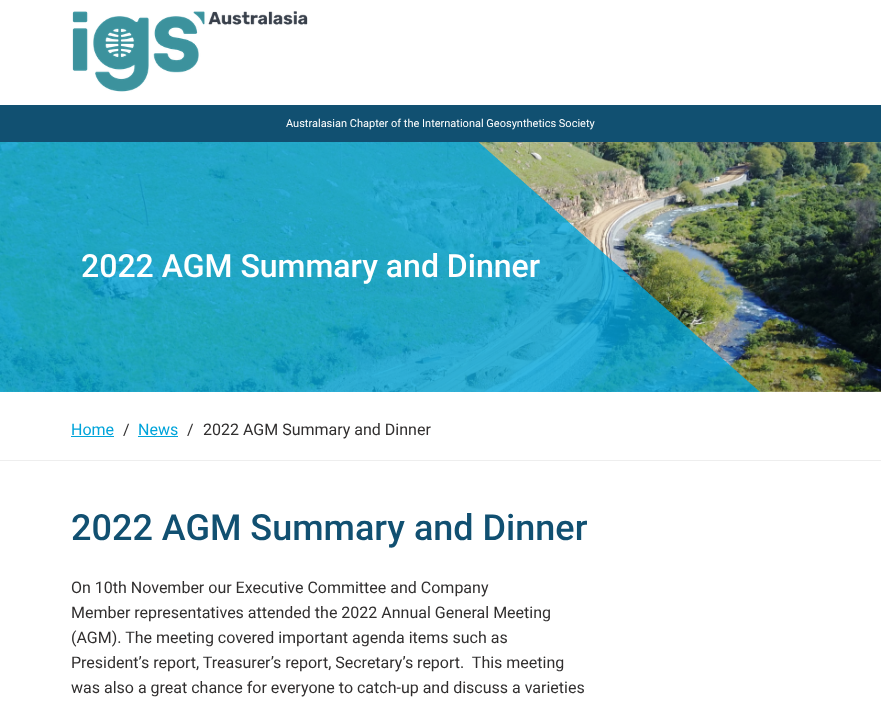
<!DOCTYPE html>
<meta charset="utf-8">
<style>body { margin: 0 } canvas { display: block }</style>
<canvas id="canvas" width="881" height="706"></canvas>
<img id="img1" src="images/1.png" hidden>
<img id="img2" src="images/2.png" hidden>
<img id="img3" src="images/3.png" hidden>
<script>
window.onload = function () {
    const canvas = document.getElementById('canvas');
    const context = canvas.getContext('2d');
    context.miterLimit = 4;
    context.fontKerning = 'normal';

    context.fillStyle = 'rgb(255, 255, 255)';
    context.fillRect(0, 0, 881, 706);
    context.drawImage(document.getElementById('img1'), 72, 11, 236, 81);
    context.fillStyle = 'rgb(17, 80, 113)';
    context.fillRect(0, 105, 881, 37);
    context.drawImage(document.getElementById('img2'), 0, 142, 881, 250);
    context.drawImage(document.getElementById('img3'), 0, 142, 760, 250);
    context.fillStyle = 'rgb(238, 238, 238)';
    context.fillRect(0, 460, 881, 1);
    context.fillStyle = 'rgb(0, 164, 218)';
    context.fillRect(71, 436, 43, 1);
    context.fillRect(138, 436, 40, 1);
    context.font = '11px Roboto';
    context.fillStyle = 'rgb(255, 255, 255)';
    context.fillText('Australasian Chapter of the International Geosynthetics Society', 286, 127);
    context.font = '500 32px Roboto';
    context.fillText('2022 AGM Summary and Dinner', 81, 277);
    context.font = '16px Roboto';
    context.fillStyle = 'rgb(0, 164, 218)';
    context.fillText('Home', 71, 435);
    context.fillStyle = 'rgb(49, 47, 47)';
    context.fillText('/', 123, 435);
    context.fillStyle = 'rgb(0, 164, 218)';
    context.fillText('News', 138, 435);
    context.fillStyle = 'rgb(49, 47, 47)';
    context.fillText('/', 187, 435);
    context.fillText('2022 AGM Summary and Dinner', 203, 435);
    context.font = '500 36px Roboto';
    context.fillStyle = 'rgb(17, 80, 113)';
    context.fillText('2022 AGM Summary and Dinner', 71, 540);
    context.font = '16px Roboto';
    context.fillStyle = 'rgb(49, 47, 47)';
    context.fillText('On 10th November our Executive Committee and Company', 71, 593);
    context.fillText('Member representatives attended the 2022 Annual General Meeting', 71, 618);
    context.fillText('(AGM). The meeting covered important agenda items such as', 71, 643);
    context.fillText('President’s report, Treasurer’s report, Secretary’s report.  This meeting', 71, 668);
    context.fillText('was also a great chance for everyone to catch-up and discuss a varieties', 71, 693);
};
</script>
